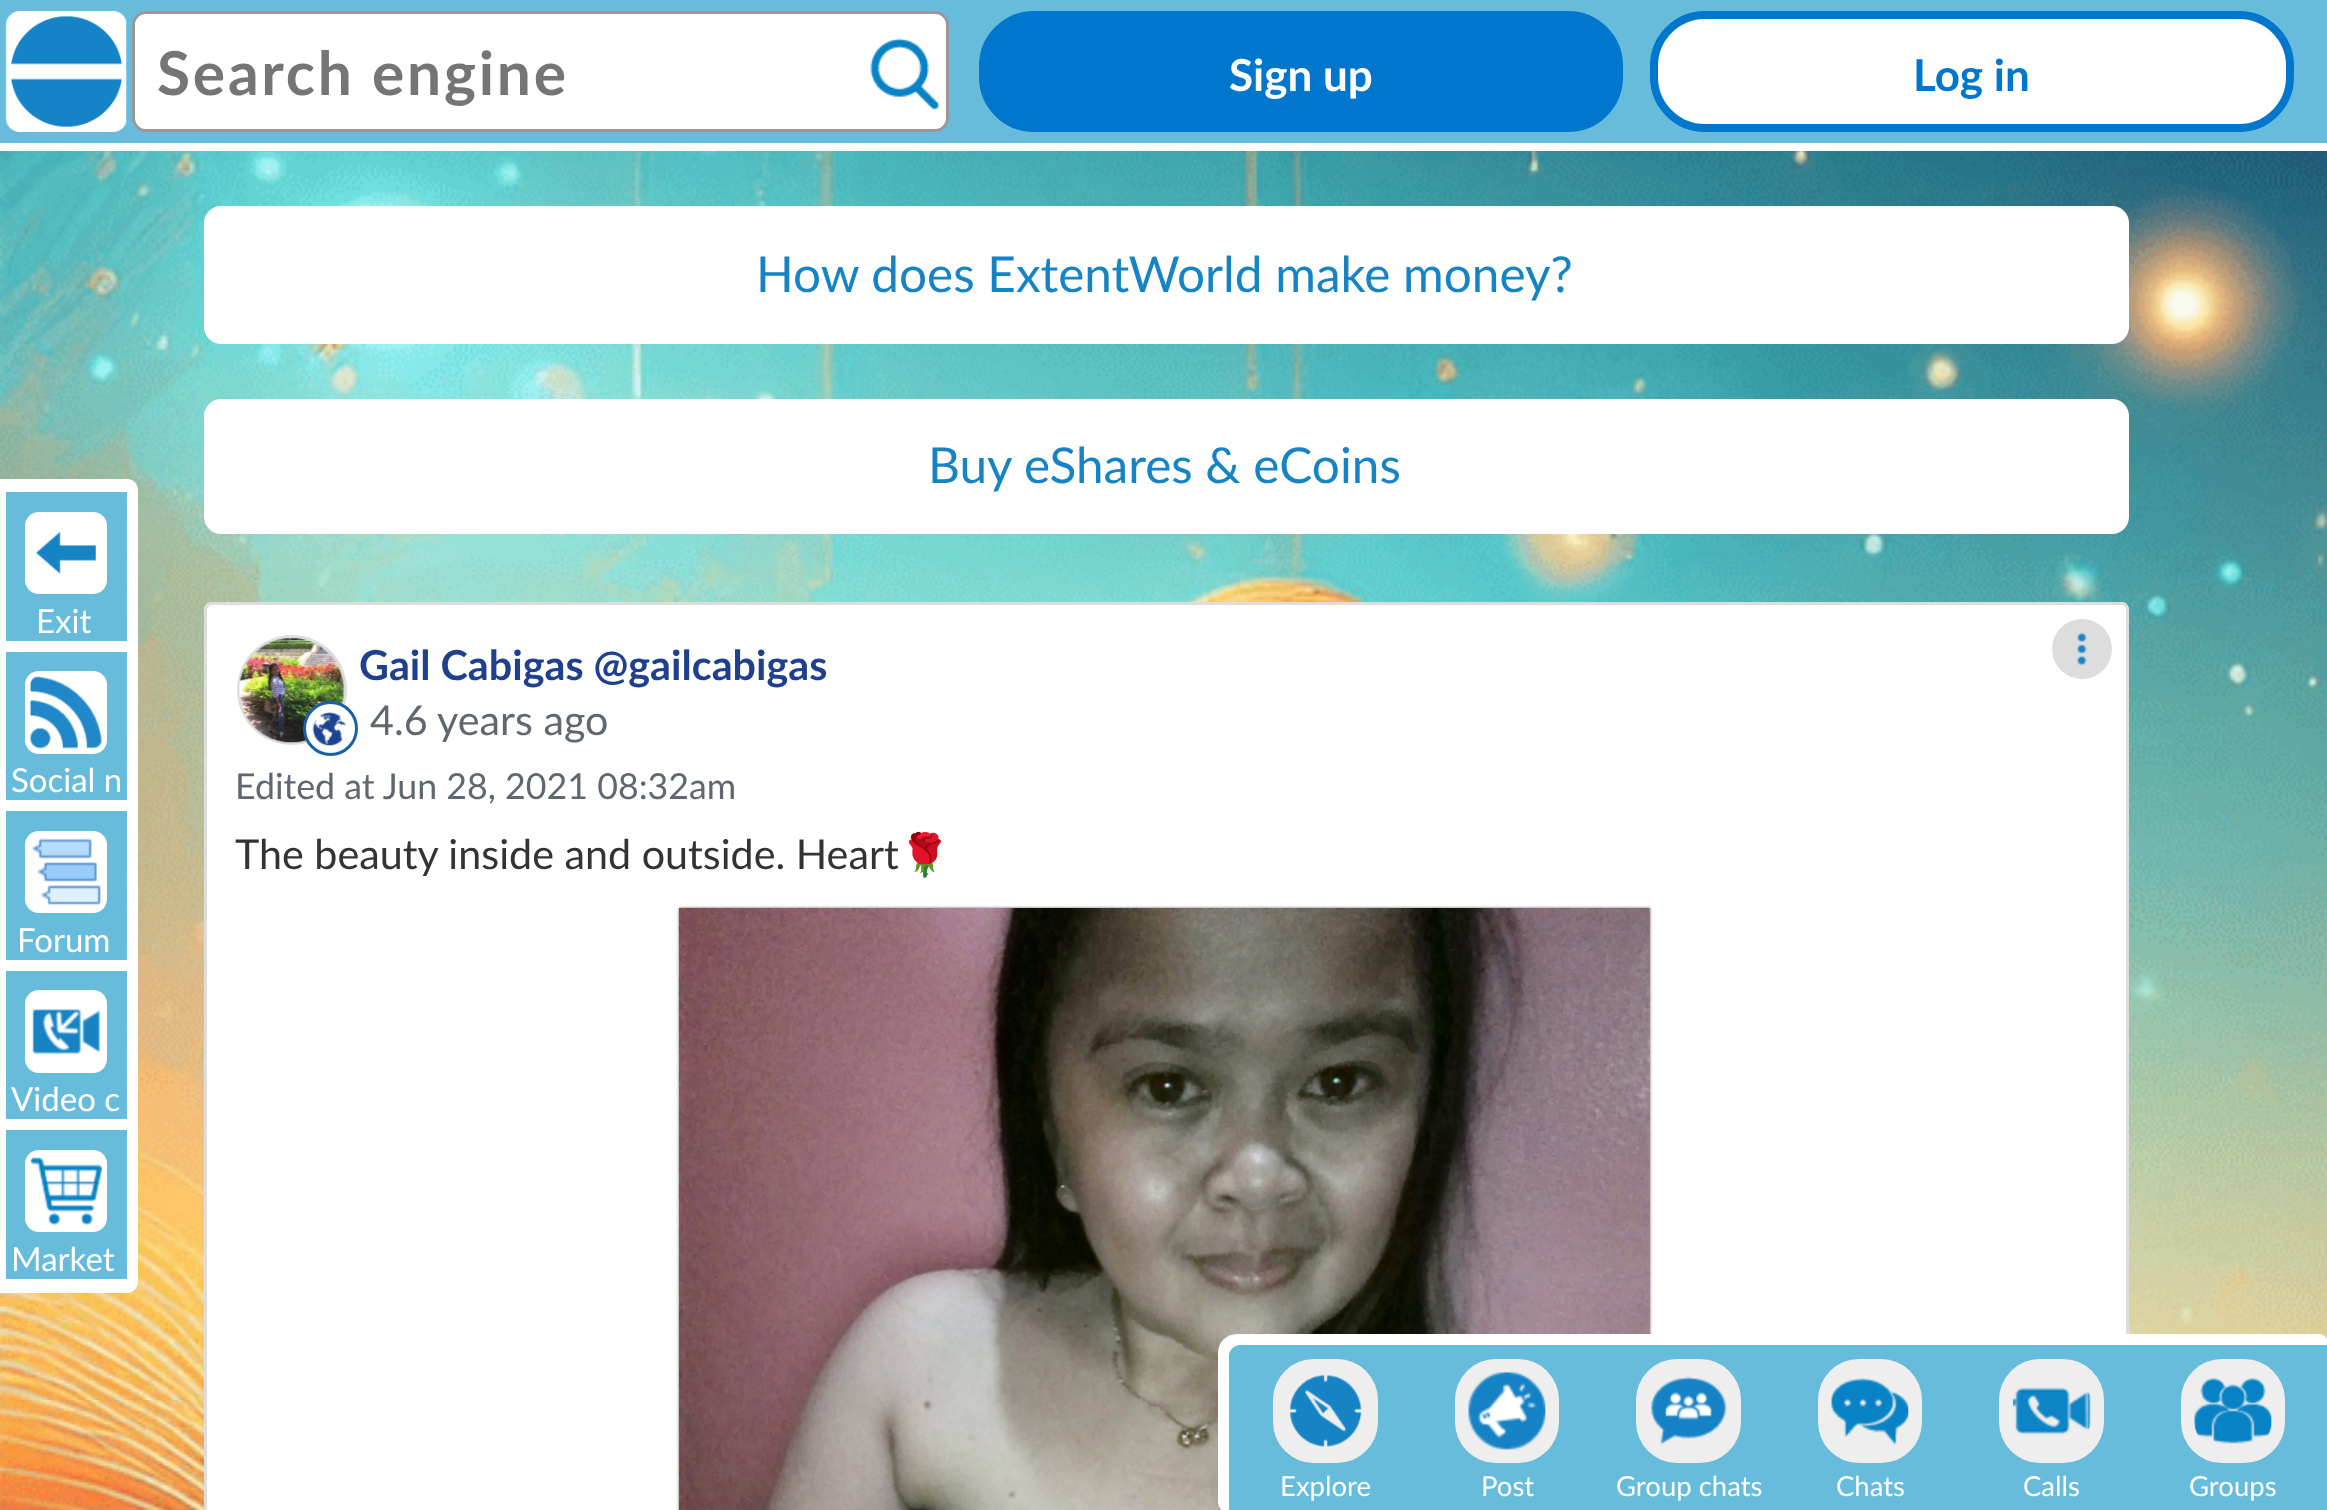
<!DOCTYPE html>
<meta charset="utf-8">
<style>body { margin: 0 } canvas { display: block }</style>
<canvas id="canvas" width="2327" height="1510"></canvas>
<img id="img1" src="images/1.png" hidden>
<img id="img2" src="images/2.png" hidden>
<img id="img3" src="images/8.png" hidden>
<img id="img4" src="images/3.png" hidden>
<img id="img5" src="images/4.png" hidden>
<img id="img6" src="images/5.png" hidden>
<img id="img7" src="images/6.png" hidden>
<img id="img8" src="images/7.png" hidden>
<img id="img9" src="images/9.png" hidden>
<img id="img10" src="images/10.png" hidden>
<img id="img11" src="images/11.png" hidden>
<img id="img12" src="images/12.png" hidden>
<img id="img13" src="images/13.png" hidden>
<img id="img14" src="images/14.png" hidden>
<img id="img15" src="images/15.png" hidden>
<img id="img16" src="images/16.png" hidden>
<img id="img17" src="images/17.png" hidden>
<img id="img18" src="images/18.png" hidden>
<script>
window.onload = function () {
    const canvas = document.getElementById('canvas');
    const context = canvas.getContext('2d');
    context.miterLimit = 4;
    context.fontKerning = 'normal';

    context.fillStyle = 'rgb(255, 255, 255)';
    context.fillRect(0, 0, 2327, 1510);
    context.fillStyle = 'rgb(103, 188, 219)';
    context.fillRect(0, 0, 2327, 143);
    context.drawImage(document.getElementById('img1'), 5, 11, 122, 121);
    context.fillStyle = 'rgb(255, 255, 255)';
    context.beginPath();
    context.roundRect(133.5, 12.5, 814, 118, 12.5);
    context.fill();
    context.strokeStyle = 'rgb(153, 153, 153)';
    context.lineWidth = 3;
    context.stroke();
    context.drawImage(document.getElementById('img2'), 870, 38, 70, 72);
    context.fillStyle = 'rgb(0, 119, 204)';
    context.beginPath();
    context.roundRect(983, 15, 636, 113, 51);
    context.fill();
    context.strokeStyle = 'rgb(0, 119, 204)';
    context.lineWidth = 8;
    context.stroke();
    context.fillStyle = 'rgb(255, 255, 255)';
    context.beginPath();
    context.roundRect(1654, 15, 636, 113, 51);
    context.fill();
    context.stroke();
    context.drawImage(document.getElementById('img3'), 0, 151, 2327, 1359);
    context.beginPath();
    context.roundRect(0, 479, 138, 814, [0, 11, 11, 0]);
    context.fill();
    context.fillStyle = 'rgb(103, 188, 219)';
    context.fillRect(6, 492, 121, 149);
    context.fillStyle = 'rgb(255, 255, 255)';
    context.beginPath();
    context.roundRect(25, 512, 82, 82, 14);
    context.fill();
    context.drawImage(document.getElementById('img4'), 35, 531, 61, 43);
    context.fillStyle = 'rgb(103, 188, 219)';
    context.fillRect(6, 652, 121, 148);
    context.fillStyle = 'rgb(255, 255, 255)';
    context.beginPath();
    context.roundRect(25, 671, 82, 83, 14);
    context.fill();
    context.drawImage(document.getElementById('img5'), 29, 676, 73, 73);
    context.fillStyle = 'rgb(103, 188, 219)';
    context.fillRect(6, 811, 121, 149);
    context.fillStyle = 'rgb(255, 255, 255)';
    context.beginPath();
    context.roundRect(25, 831, 82, 82, 14);
    context.fill();
    context.drawImage(document.getElementById('img6'), 31, 838, 70, 67);
    context.fillStyle = 'rgb(103, 188, 219)';
    context.fillRect(6, 971, 121, 148);
    context.fillStyle = 'rgb(255, 255, 255)';
    context.beginPath();
    context.roundRect(25, 990, 82, 83, 14);
    context.fill();
    context.drawImage(document.getElementById('img7'), 32, 1009, 69, 46);
    context.fillStyle = 'rgb(103, 188, 219)';
    context.fillRect(6, 1130, 121, 149);
    context.fillStyle = 'rgb(255, 255, 255)';
    context.beginPath();
    context.roundRect(25, 1150, 82, 82, 14);
    context.fill();
    context.drawImage(document.getElementById('img8'), 30, 1157, 72, 69);
    context.beginPath();
    context.roundRect(204, 206, 1925, 138, 17);
    context.fill();
    context.beginPath();
    context.roundRect(204, 399, 1925, 135, 17);
    context.fill();
    context.beginPath();
    context.moveTo(212, 602);
    context.lineTo(2121, 602);
    context.bezierCurveTo(2125.5, 602, 2129, 605.5, 2129, 610);
    context.lineTo(2129, 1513);
    context.lineTo(204, 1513);
    context.lineTo(204, 610);
    context.bezierCurveTo(204, 605.5, 207.5, 602, 212, 602);
    context.closePath();
    context.fill();
    context.beginPath();
    context.roundRect(205.5, 603.5, 1922, 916, 6.5);
    context.strokeStyle = 'rgb(221, 221, 221)';
    context.lineWidth = 3;
    context.stroke();
    context.fillStyle = 'rgb(221, 221, 221)';
    context.beginPath();
    context.arc(292, 690, 55, 0, 2 * Math.PI);
    context.fill();
    context.drawImage(document.getElementById('img9'), 239, 637, 106, 106);
    context.fillStyle = 'rgb(255, 255, 255)';
    context.beginPath();
    context.arc(330.5, 728.5, 26, 0, 2 * Math.PI);
    context.fill();
    context.strokeStyle = 'rgb(27, 96, 164)';
    context.stroke();
    context.drawImage(document.getElementById('img10'), 312, 712, 34, 34);
    context.fillStyle = 'rgb(221, 221, 221)';
    context.beginPath();
    context.arc(2082, 649, 30, 0, 2 * Math.PI);
    context.fill();
    context.drawImage(document.getElementById('img11'), 2076, 632, 12, 34);
    context.fillStyle = 'rgb(102, 102, 102)';
    context.filter = 'blur(1.5px)';
    context.beginPath();
    context.rect(679, 908, 971, 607);
    context.fill();
    context.filter = 'none';
    context.drawImage(document.getElementById('img12'), 679, 908, 971, 602);
    context.fillStyle = 'rgb(255, 255, 255)';
    context.beginPath();
    context.moveTo(1237, 1334);
    context.lineTo(2318, 1334);
    context.bezierCurveTo(2324, 1334, 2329, 1339, 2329, 1345);
    context.lineTo(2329, 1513);
    context.lineTo(1229, 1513);
    context.bezierCurveTo(1223, 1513, 1218, 1508, 1218, 1502);
    context.lineTo(1218, 1353);
    context.bezierCurveTo(1218, 1342.5, 1226.5, 1334, 1237, 1334);
    context.closePath();
    context.fill();
    context.fillStyle = 'rgb(103, 188, 219)';
    context.beginPath();
    context.moveTo(1240, 1345);
    context.lineTo(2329, 1345);
    context.lineTo(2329, 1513);
    context.lineTo(1229, 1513);
    context.lineTo(1229, 1356);
    context.bezierCurveTo(1229, 1350, 1234, 1345, 1240, 1345);
    context.closePath();
    context.fill();
    context.fillStyle = 'rgb(238, 238, 238)';
    context.beginPath();
    context.roundRect(1273, 1359, 105, 104, 41);
    context.fill();
    context.drawImage(document.getElementById('img13'), 1289, 1375, 73, 72);
    context.beginPath();
    context.roundRect(1455, 1359, 104, 104, 41);
    context.fill();
    context.drawImage(document.getElementById('img14'), 1468, 1371, 78, 79);
    context.beginPath();
    context.roundRect(1636, 1359, 105, 104, 41);
    context.fill();
    context.drawImage(document.getElementById('img15'), 1651, 1376, 76, 69);
    context.beginPath();
    context.roundRect(1818, 1359, 104, 104, 41);
    context.fill();
    context.drawImage(document.getElementById('img16'), 1831, 1378, 78, 67);
    context.beginPath();
    context.roundRect(1999, 1359, 105, 104, 41);
    context.fill();
    context.drawImage(document.getElementById('img17'), 2012, 1387, 79, 48);
    context.beginPath();
    context.roundRect(2181, 1359, 104, 104, 41);
    context.fill();
    context.drawImage(document.getElementById('img18'), 2194, 1378, 78, 66);
    context.letterSpacing = '2.75px';
    context.font = 'bold 60.5px Lato';
    context.fillStyle = 'rgb(117, 117, 117)';
    context.fillText('Search engine', 157, 95);
    context.letterSpacing = '0px';
    context.font = 'bold 44px Lato';
    context.fillStyle = 'rgb(255, 255, 255)';
    context.fillText('Sign up', 1229, 91);
    context.fillStyle = 'rgb(0, 119, 204)';
    context.fillText('Log in', 1913, 91);
    context.font = '33px Lato';
    context.fillStyle = 'rgb(255, 255, 255)';
    context.fillText('Exit', 36, 633);
    context.fillText('Social n', 11, 792);
    context.fillText('Forum', 17, 952);
    context.fillText('Video c', 11, 1111);
    context.fillText('Market', 11, 1271);
    context.font = '49.5px Lato';
    context.fillStyle = 'rgb(22, 131, 197)';
    context.fillText('How does ExtentWorld make money?', 756, 292);
    context.fillText('Buy eShares & eCoins', 928, 483);
    context.font = 'bold 41.25px Lato';
    context.fillStyle = 'rgb(31, 64, 140)';
    context.fillText('Gail Cabigas @gailcabigas', 359, 680);
    context.font = '41.25px Lato';
    context.fillStyle = 'rgb(97, 103, 112)';
    context.fillText('4.6 years ago', 370, 735);
    context.font = '35.75px Lato';
    context.fillText('Edited at Jun 28, 2021 08:32am', 235, 799);
    context.font = '41.25px Lato';
    context.fillStyle = 'rgb(51, 51, 51)';
    context.fillText('The beauty inside and outside. Heart', 235, 869);
    context.font = '41.25px Noto Color Emoji';
    context.fillText('🌹', 899, 869);
    context.font = '27.5px Lato';
    context.fillStyle = 'rgb(255, 255, 255)';
    context.fillText('Explore', 1280, 1496);
    context.fillText('Post', 1481, 1496);
    context.fillText('Group chats', 1616, 1496);
    context.fillText('Chats', 1836, 1496);
    context.fillText('Calls', 2023, 1496);
    context.fillText('Groups', 2189, 1496);
};
</script>
